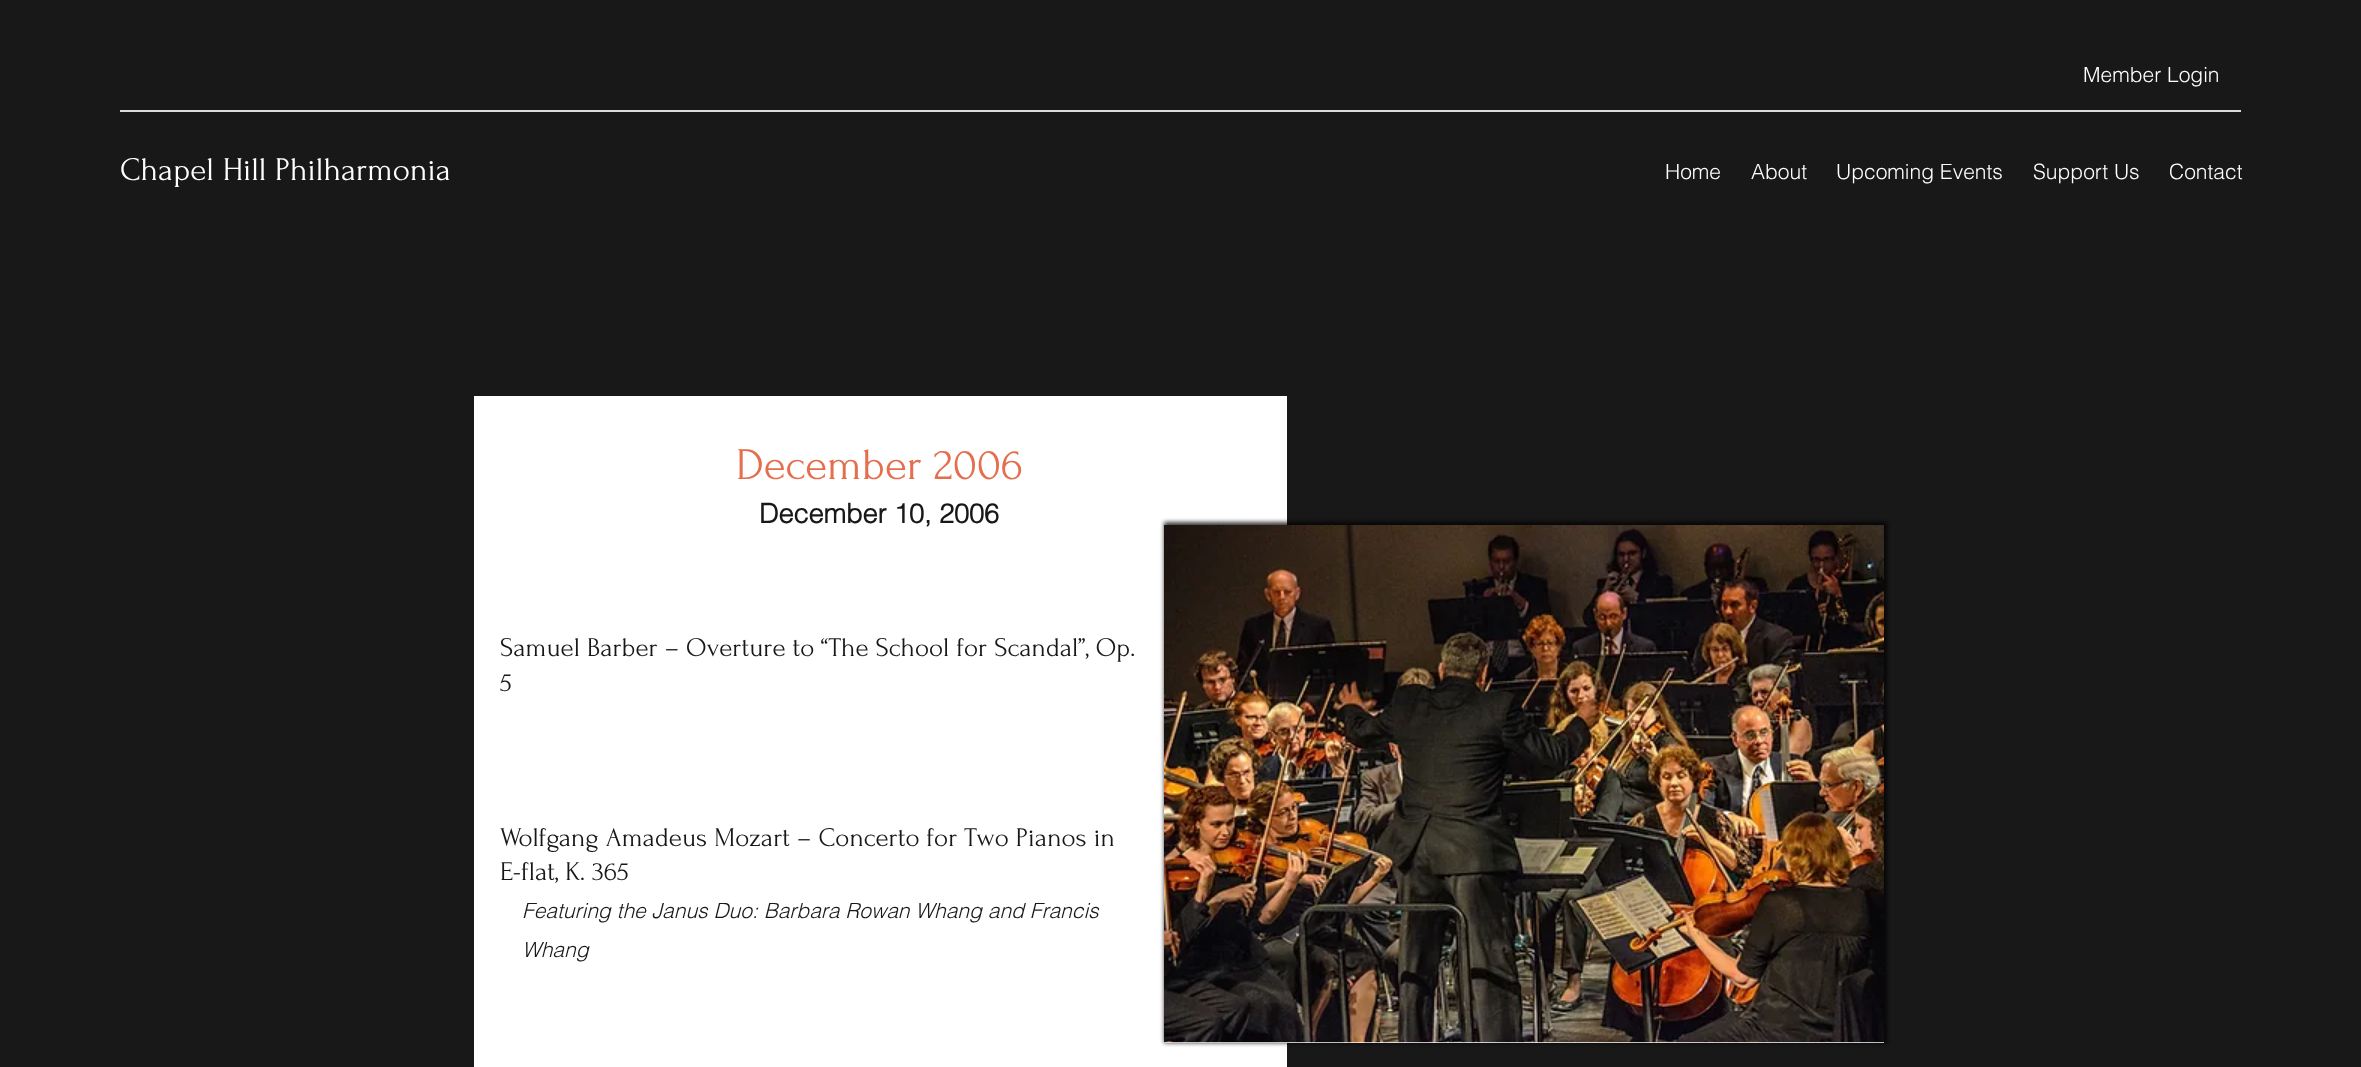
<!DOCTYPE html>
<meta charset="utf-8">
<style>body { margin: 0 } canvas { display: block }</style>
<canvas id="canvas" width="2361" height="1067"></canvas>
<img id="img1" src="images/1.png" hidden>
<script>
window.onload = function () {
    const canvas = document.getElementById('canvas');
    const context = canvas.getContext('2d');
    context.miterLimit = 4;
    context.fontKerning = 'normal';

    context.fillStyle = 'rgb(24, 24, 24)';
    context.fillRect(0, 0, 2361, 1067);
    context.fillStyle = 'rgb(220, 220, 220)';
    context.fillRect(120, 110, 2121, 2);
    context.fillStyle = 'rgb(255, 255, 255)';
    context.fillRect(474, 396, 813, 671);
    context.fillStyle = 'rgba(0, 0, 0, 0.76)';
    context.filter = 'blur(2px)';
    context.beginPath();
    context.rect(1164, 522, 723, 521);
    context.fill();
    context.filter = 'none';
    context.fillStyle = 'rgb(255, 255, 255)';
    context.fillRect(1164, 1042, 720, 1);
    context.drawImage(document.getElementById('img1'), 1164, 525, 720, 518);
    context.font = '300 21px helvetica';
    context.fillText('Member Login', 2083, 82);
    context.font = '33px Forum';
    context.fillText('Chapel Hill Philharmonia', 120, 180);
    context.font = '300 21px helvetica';
    context.fillText('Home', 1665, 179);
    context.fillText('About', 1751, 179);
    context.fillText('Upcoming Events', 1836, 179);
    context.fillText('Support Us', 2033, 179);
    context.fillText('Contact', 2169, 179);
    context.font = '45px Forum';
    context.fillStyle = 'rgb(229, 110, 78)';
    context.fillText('December 2006', 736, 479);
    context.font = 'bold 27px helvetica';
    context.fillStyle = 'rgb(24, 24, 24)';
    context.fillText('December 10, 2006', 759, 523);
    context.font = '27px Forum';
    context.fillText('Samuel Barber – Overture to “The School for Scandal”, Op.', 500, 656);
    context.fillText('5', 500, 691);
    context.fillText('Wolfgang Amadeus Mozart – Concerto for Two Pianos in', 500, 846);
    context.fillText('E-flat, K. 365', 500, 880);
    context.font = 'italic 300 21px helvetica';
    context.fillText('Featuring the Janus Duo: Barbara Rowan Whang and Francis', 522, 918);
    context.fillText('Whang', 522, 957);
};
</script>
